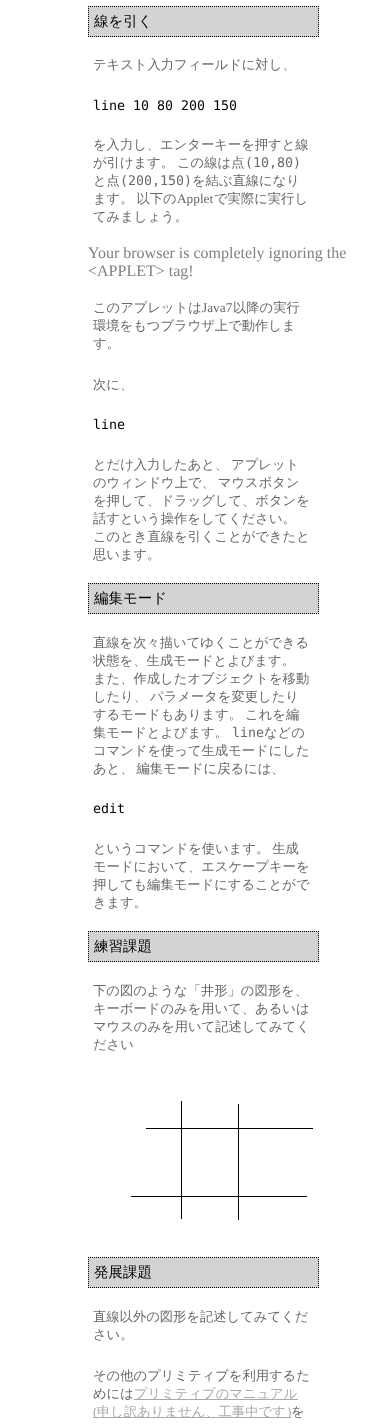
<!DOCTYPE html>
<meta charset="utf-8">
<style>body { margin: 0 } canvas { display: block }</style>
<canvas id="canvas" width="370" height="1426"></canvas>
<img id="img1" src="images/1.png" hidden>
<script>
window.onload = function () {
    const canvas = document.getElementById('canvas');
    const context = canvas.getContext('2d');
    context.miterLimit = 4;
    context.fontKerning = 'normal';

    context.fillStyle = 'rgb(255, 255, 255)';
    context.fillRect(0, 0, 370, 1426);
    context.fillStyle = 'rgb(211, 211, 211)';
    context.fillRect(88, 6, 231, 31);
    context.beginPath();
    context.moveTo(88, 6.5);
    context.lineTo(319, 6.5);
    context.strokeStyle = 'rgb(0, 0, 0)';
    context.setLineDash([1, 1]);
    context.stroke();
    context.beginPath();
    context.moveTo(318.5, 6);
    context.lineTo(318.5, 37);
    context.stroke();
    context.beginPath();
    context.moveTo(88, 36.5);
    context.lineTo(319, 36.5);
    context.stroke();
    context.beginPath();
    context.moveTo(88.5, 6);
    context.lineTo(88.5, 37);
    context.stroke();
    context.fillRect(88, 583, 231, 31);
    context.beginPath();
    context.moveTo(88, 583.5);
    context.lineTo(319, 583.5);
    context.stroke();
    context.beginPath();
    context.moveTo(318.5, 583);
    context.lineTo(318.5, 614);
    context.stroke();
    context.beginPath();
    context.moveTo(88, 613.5);
    context.lineTo(319, 613.5);
    context.stroke();
    context.beginPath();
    context.moveTo(88.5, 583);
    context.lineTo(88.5, 614);
    context.stroke();
    context.fillRect(88, 931, 231, 31);
    context.beginPath();
    context.moveTo(88, 931.5);
    context.lineTo(319, 931.5);
    context.stroke();
    context.beginPath();
    context.moveTo(318.5, 931);
    context.lineTo(318.5, 962);
    context.stroke();
    context.beginPath();
    context.moveTo(88, 961.5);
    context.lineTo(319, 961.5);
    context.stroke();
    context.beginPath();
    context.moveTo(88.5, 931);
    context.lineTo(88.5, 962);
    context.stroke();
    context.drawImage(document.getElementById('img1'), 131, 1101, 182, 119);
    context.fillRect(88, 1257, 231, 31);
    context.beginPath();
    context.moveTo(88, 1257.5);
    context.lineTo(319, 1257.5);
    context.stroke();
    context.beginPath();
    context.moveTo(318.5, 1257);
    context.lineTo(318.5, 1288);
    context.stroke();
    context.beginPath();
    context.moveTo(88, 1287.5);
    context.lineTo(319, 1287.5);
    context.stroke();
    context.beginPath();
    context.moveTo(88.5, 1257);
    context.lineTo(88.5, 1288);
    context.stroke();
    context.fillStyle = 'rgb(169, 169, 169)';
    context.fillRect(134, 1399, 164, 1);
    context.fillRect(93, 1417, 198, 1);
    context.font = '500 14.5px WenQuanYi Zen Hei';
    context.fillStyle = 'rgb(0, 0, 0)';
    context.fillText('線を引く', 94, 26);
    context.font = '500 13.3px WenQuanYi Zen Hei';
    context.fillStyle = 'rgb(105, 105, 105)';
    context.fillText('テキスト入力フィールドに対し、', 93, 69);
    context.font = '13.3px DejaVu Sans Mono';
    context.fillStyle = 'rgb(0, 0, 0)';
    context.fillText('line 10 80 200 150', 93, 110);
    context.font = '500 13.3px WenQuanYi Zen Hei';
    context.fillStyle = 'rgb(105, 105, 105)';
    context.fillText('を入力し、エンターキーを押すと線', 93, 149);
    context.wordSpacing = '-1px';
    context.fillText('が引けます。 この線は点', 93, 167);
    context.wordSpacing = '0px';
    context.font = '13.3px DejaVu Sans Mono';
    context.fillText('(10,80)', 245, 167);
    context.font = '500 13.3px WenQuanYi Zen Hei';
    context.fillText('と点', 93, 185);
    context.font = '13.3px DejaVu Sans Mono';
    context.fillText('(200,150)', 120, 185);
    context.font = '500 13.3px WenQuanYi Zen Hei';
    context.fillText('を結ぶ直線になり', 192, 185);
    context.wordSpacing = '-1px';
    context.fillText('ます。 以下の', 93, 203);
    context.wordSpacing = '0px';
    context.font = '13.3px Liberation Serif';
    context.fillText('Applet', 177, 203);
    context.font = '500 13.3px WenQuanYi Zen Hei';
    context.fillText('で実際に実行し', 214, 203);
    context.fillText('てみましょう。', 93, 221);
    context.font = '16px Liberation Serif';
    context.fillStyle = 'rgb(128, 128, 128)';
    context.fillText('Your browser is completely ignoring the', 88, 258);
    context.fillText('<APPLET> tag!', 88, 276);
    context.font = '500 13.3px WenQuanYi Zen Hei';
    context.fillStyle = 'rgb(105, 105, 105)';
    context.fillText('このアプレットは', 93, 312);
    context.font = '13.3px Liberation Serif';
    context.fillText('Java7', 202, 312);
    context.font = '500 13.3px WenQuanYi Zen Hei';
    context.fillText('以降の実行', 233, 312);
    context.fillText('環境をもつブラウザ上で動作しま', 93, 330);
    context.fillText('す。', 93, 348);
    context.fillText('次に、', 93, 389);
    context.font = '13.3px DejaVu Sans Mono';
    context.fillStyle = 'rgb(0, 0, 0)';
    context.fillText('line', 93, 429);
    context.wordSpacing = '-1px';
    context.font = '500 13.3px WenQuanYi Zen Hei';
    context.fillStyle = 'rgb(105, 105, 105)';
    context.fillText('とだけ入力したあと、 アプレット', 93, 469);
    context.fillText('のウィンドウ上で、 マウスボタン', 93, 487);
    context.wordSpacing = '0px';
    context.fillText('を押して、ドラッグして、ボタンを', 93, 505);
    context.fillText('話すという操作をしてください。', 93, 523);
    context.fillText('このとき直線を引くことができたと', 93, 541);
    context.fillText('思います。', 93, 559);
    context.font = '500 14.5px WenQuanYi Zen Hei';
    context.fillStyle = 'rgb(0, 0, 0)';
    context.fillText('編集モード', 94, 603);
    context.font = '500 13.3px WenQuanYi Zen Hei';
    context.fillStyle = 'rgb(105, 105, 105)';
    context.fillText('直線を次々描いてゆくことができる', 93, 647);
    context.fillText('状態を、生成モードとよびます。', 93, 665);
    context.fillText('また、作成したオブジェクトを移動', 93, 683);
    context.wordSpacing = '-1px';
    context.fillText('したり、 パラメータを変更したり', 93, 701);
    context.fillText('するモードもあります。 これを編', 93, 719);
    context.wordSpacing = '0px';
    context.fillText('集モードとよびます。', 93, 737);
    context.font = '13.3px DejaVu Sans Mono';
    context.fillText('line', 232, 737);
    context.font = '500 13.3px WenQuanYi Zen Hei';
    context.fillText('などの', 264, 737);
    context.fillText('コマンドを使って生成モードにした', 93, 755);
    context.wordSpacing = '-1px';
    context.fillText('あと、 編集モードに戻るには、', 93, 773);
    context.wordSpacing = '0px';
    context.font = '13.3px DejaVu Sans Mono';
    context.fillStyle = 'rgb(0, 0, 0)';
    context.fillText('edit', 93, 813);
    context.wordSpacing = '-1px';
    context.font = '500 13.3px WenQuanYi Zen Hei';
    context.fillStyle = 'rgb(105, 105, 105)';
    context.fillText('というコマンドを使います。 生成', 93, 853);
    context.wordSpacing = '0px';
    context.fillText('モードにおいて、エスケープキーを', 93, 871);
    context.fillText('押しても編集モードにすることがで', 93, 889);
    context.fillText('きます。', 93, 907);
    context.font = '500 14.5px WenQuanYi Zen Hei';
    context.fillStyle = 'rgb(0, 0, 0)';
    context.fillText('練習課題', 94, 951);
    context.font = '500 13.3px WenQuanYi Zen Hei';
    context.fillStyle = 'rgb(105, 105, 105)';
    context.fillText('下の図のような「井形」の図形を、', 93, 995);
    context.fillText('キーボードのみを用いて、あるいは', 93, 1013);
    context.fillText('マウスのみを用いて記述してみてく', 93, 1031);
    context.fillText('ださい', 93, 1049);
    context.font = '500 14.5px WenQuanYi Zen Hei';
    context.fillStyle = 'rgb(0, 0, 0)';
    context.fillText('発展課題', 94, 1277);
    context.font = '500 13.3px WenQuanYi Zen Hei';
    context.fillStyle = 'rgb(105, 105, 105)';
    context.fillText('直線以外の図形を記述してみてくだ', 93, 1321);
    context.fillText('さい。', 93, 1339);
    context.fillText('その他のプリミティブを利用するた', 93, 1380);
    context.fillText('めには', 93, 1398);
    context.fillStyle = 'rgb(169, 169, 169)';
    context.fillText('プリミティブのマニュアル', 134, 1398);
    context.font = '13.3px Liberation Serif';
    context.fillText('(', 93, 1416);
    context.font = '500 13.3px WenQuanYi Zen Hei';
    context.fillText('申し訳ありません、工事中です', 97, 1416);
    context.font = '13.3px Liberation Serif';
    context.fillText(')', 287, 1416);
    context.font = '500 13.3px WenQuanYi Zen Hei';
    context.fillStyle = 'rgb(105, 105, 105)';
    context.fillText('を', 291, 1416);
};
</script>
